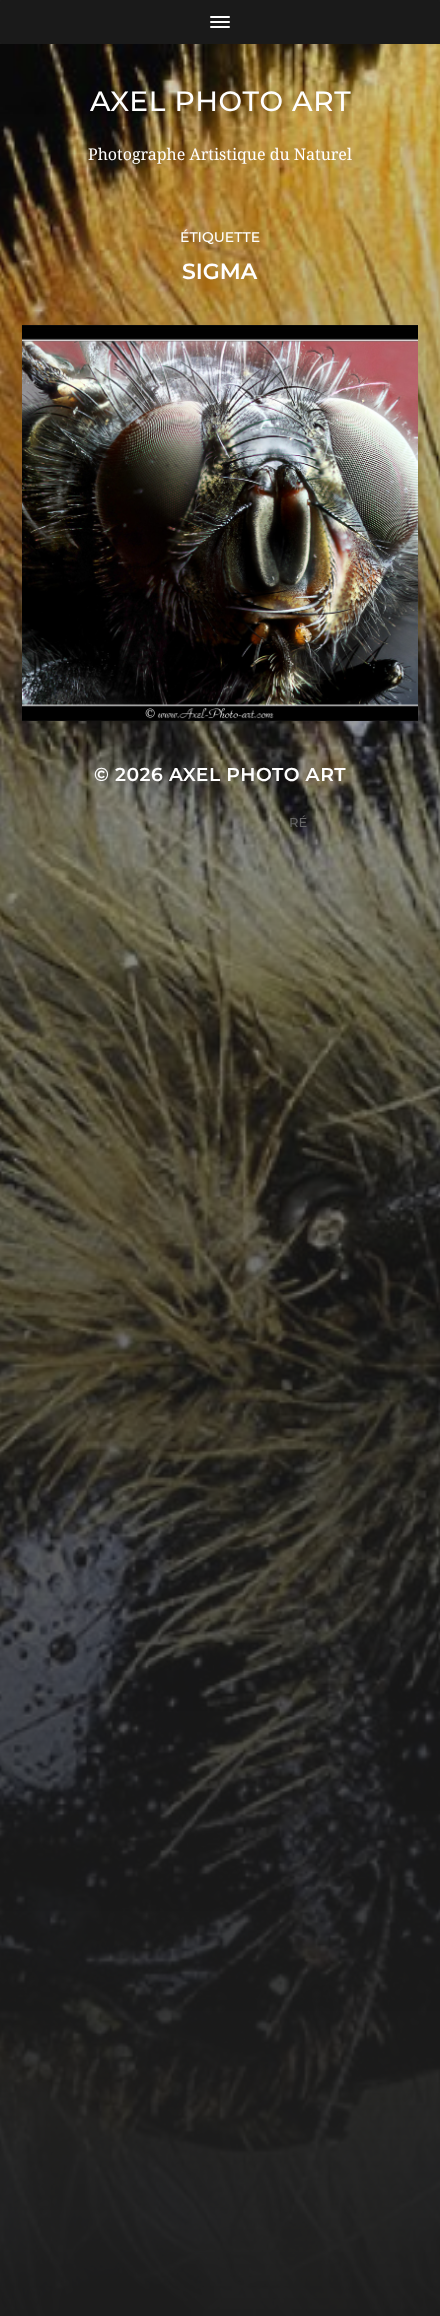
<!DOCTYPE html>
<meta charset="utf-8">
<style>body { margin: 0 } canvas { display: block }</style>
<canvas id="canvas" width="440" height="2316"></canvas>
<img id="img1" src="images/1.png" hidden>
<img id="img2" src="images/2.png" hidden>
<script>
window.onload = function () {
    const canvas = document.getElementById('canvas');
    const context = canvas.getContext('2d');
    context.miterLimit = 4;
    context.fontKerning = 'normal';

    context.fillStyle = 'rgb(29, 29, 29)';
    context.fillRect(0, 0, 440, 2316);
    context.fillStyle = 'rgb(26, 26, 26)';
    context.beginPath();
    context.roundRect(0, 0, 440, 44, 3);
    context.fill();
    context.fillStyle = 'rgb(255, 255, 255)';
    context.beginPath();
    context.roundRect(210, 16, 20, 2, 1);
    context.fill();
    context.beginPath();
    context.roundRect(210, 21, 20, 2, 1);
    context.fill();
    context.beginPath();
    context.roundRect(210, 26, 20, 2, 1);
    context.fill();
    context.drawImage(document.getElementById('img1'), 0, 44, 440, 2272);
    context.drawImage(document.getElementById('img2'), 22, 325, 396, 396);
    context.letterSpacing = '0.75px';
    context.font = '100 28px Montserrat';
    context.fillText('AXEL PHOTO ART', 90, 111);
    context.letterSpacing = '0px';
    context.font = '16px Droid Serif';
    context.fillText('Photographe Artistique du Naturel', 88, 160);
    context.font = '100 14px Montserrat';
    context.fillText('ÉTIQUETTE', 180, 242);
    context.font = '100 22px "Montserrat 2"';
    context.fillText('SIGMA', 182, 279);
    context.letterSpacing = '0.5px';
    context.font = '100 18.75px "Montserrat 2"';
    context.fillText('© 2026 AXEL PHOTO ART', 94, 781);
    context.letterSpacing = '0px';
    context.font = '100 13px Montserrat';
    context.fillStyle = 'rgb(102, 102, 102)';
    context.fillText('RÉ', 289, 827);
};
</script>
